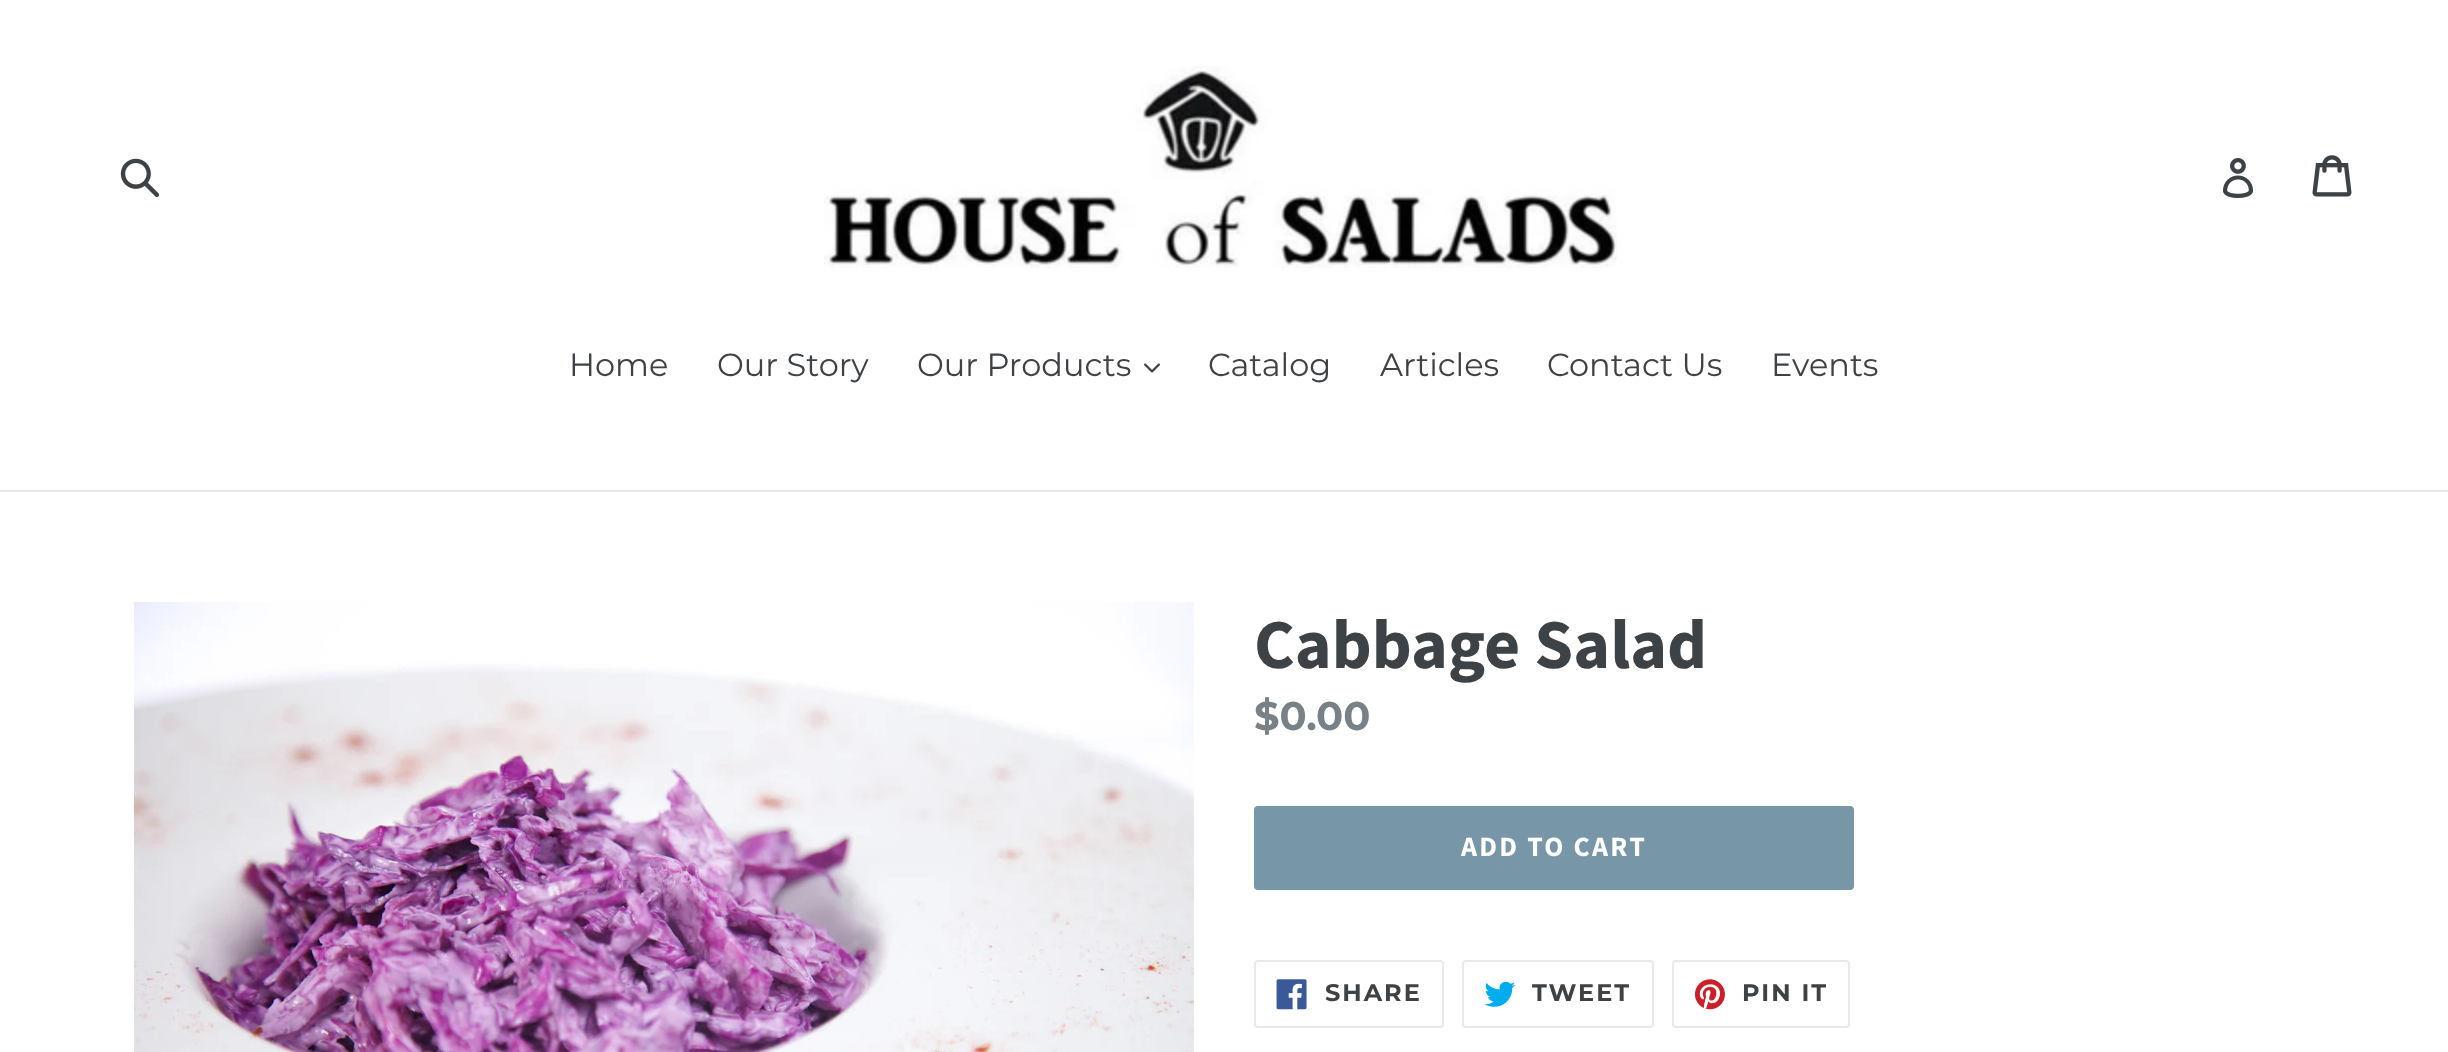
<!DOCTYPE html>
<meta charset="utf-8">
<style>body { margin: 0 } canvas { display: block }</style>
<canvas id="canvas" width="2448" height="1052"></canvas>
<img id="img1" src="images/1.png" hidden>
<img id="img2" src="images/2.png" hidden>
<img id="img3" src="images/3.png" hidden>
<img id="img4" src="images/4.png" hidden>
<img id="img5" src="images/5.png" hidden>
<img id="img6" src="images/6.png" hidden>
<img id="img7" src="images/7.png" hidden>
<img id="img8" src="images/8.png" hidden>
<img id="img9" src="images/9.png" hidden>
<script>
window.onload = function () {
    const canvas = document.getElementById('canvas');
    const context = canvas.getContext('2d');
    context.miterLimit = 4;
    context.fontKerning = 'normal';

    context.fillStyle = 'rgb(255, 255, 255)';
    context.fillRect(0, 0, 2448, 1052);
    context.drawImage(document.getElementById('img1'), 120, 158, 40, 40);
    context.drawImage(document.getElementById('img2'), 824, 66, 793, 202);
    context.drawImage(document.getElementById('img3'), 2223, 158, 31, 40);
    context.drawImage(document.getElementById('img4'), 2312, 155, 40, 42);
    context.fillStyle = 'rgb(232, 233, 235)';
    context.fillRect(0, 490, 2448, 2);
    context.drawImage(document.getElementById('img5'), 1144, 363, 16, 10);
    context.drawImage(document.getElementById('img6'), 134, 602, 1060, 450);
    context.fillStyle = 'rgb(119, 150, 168)';
    context.beginPath();
    context.roundRect(1254, 806, 600, 84, 4);
    context.fill();
    context.beginPath();
    context.roundRect(1255, 961, 188, 66, 3);
    context.strokeStyle = 'rgb(232, 233, 235)';
    context.lineWidth = 2;
    context.stroke();
    context.drawImage(document.getElementById('img7'), 1276, 979, 31, 31);
    context.beginPath();
    context.roundRect(1463, 961, 190, 66, 3);
    context.stroke();
    context.drawImage(document.getElementById('img8'), 1484, 981, 32, 26);
    context.beginPath();
    context.roundRect(1673, 961, 176, 66, 3);
    context.stroke();
    context.drawImage(document.getElementById('img9'), 1694, 979, 31, 31);
    context.font = '32px Montserrat';
    context.fillStyle = 'rgb(61, 66, 70)';
    context.fillText('Home', 569, 376);
    context.fillText('Our Story', 717, 376);
    context.fillText('Our Products', 917, 376);
    context.fillText('Catalog', 1208, 376);
    context.fillText('Articles', 1380, 376);
    context.fillText('Contact Us', 1547, 376);
    context.fillText('Events', 1771, 376);
    context.font = 'bold 70px Source Sans Pro';
    context.fillText('Cabbage Salad', 1254, 668);
    context.font = 'bold 40px Montserrat';
    context.fillStyle = 'rgb(120, 129, 136)';
    context.fillText('$0.00', 1254, 730);
    context.letterSpacing = '2.25px';
    context.font = 'bold 28px Source Sans Pro';
    context.fillStyle = 'rgb(255, 255, 255)';
    context.fillText('ADD TO CART', 1461, 856);
    context.letterSpacing = '2px';
    context.font = 'bold 24px Montserrat';
    context.fillStyle = 'rgb(61, 66, 70)';
    context.fillText('SHARE', 1325, 1001);
    context.fillText('TWEET', 1532, 1001);
    context.fillText('PIN IT', 1742, 1001);
};
</script>
